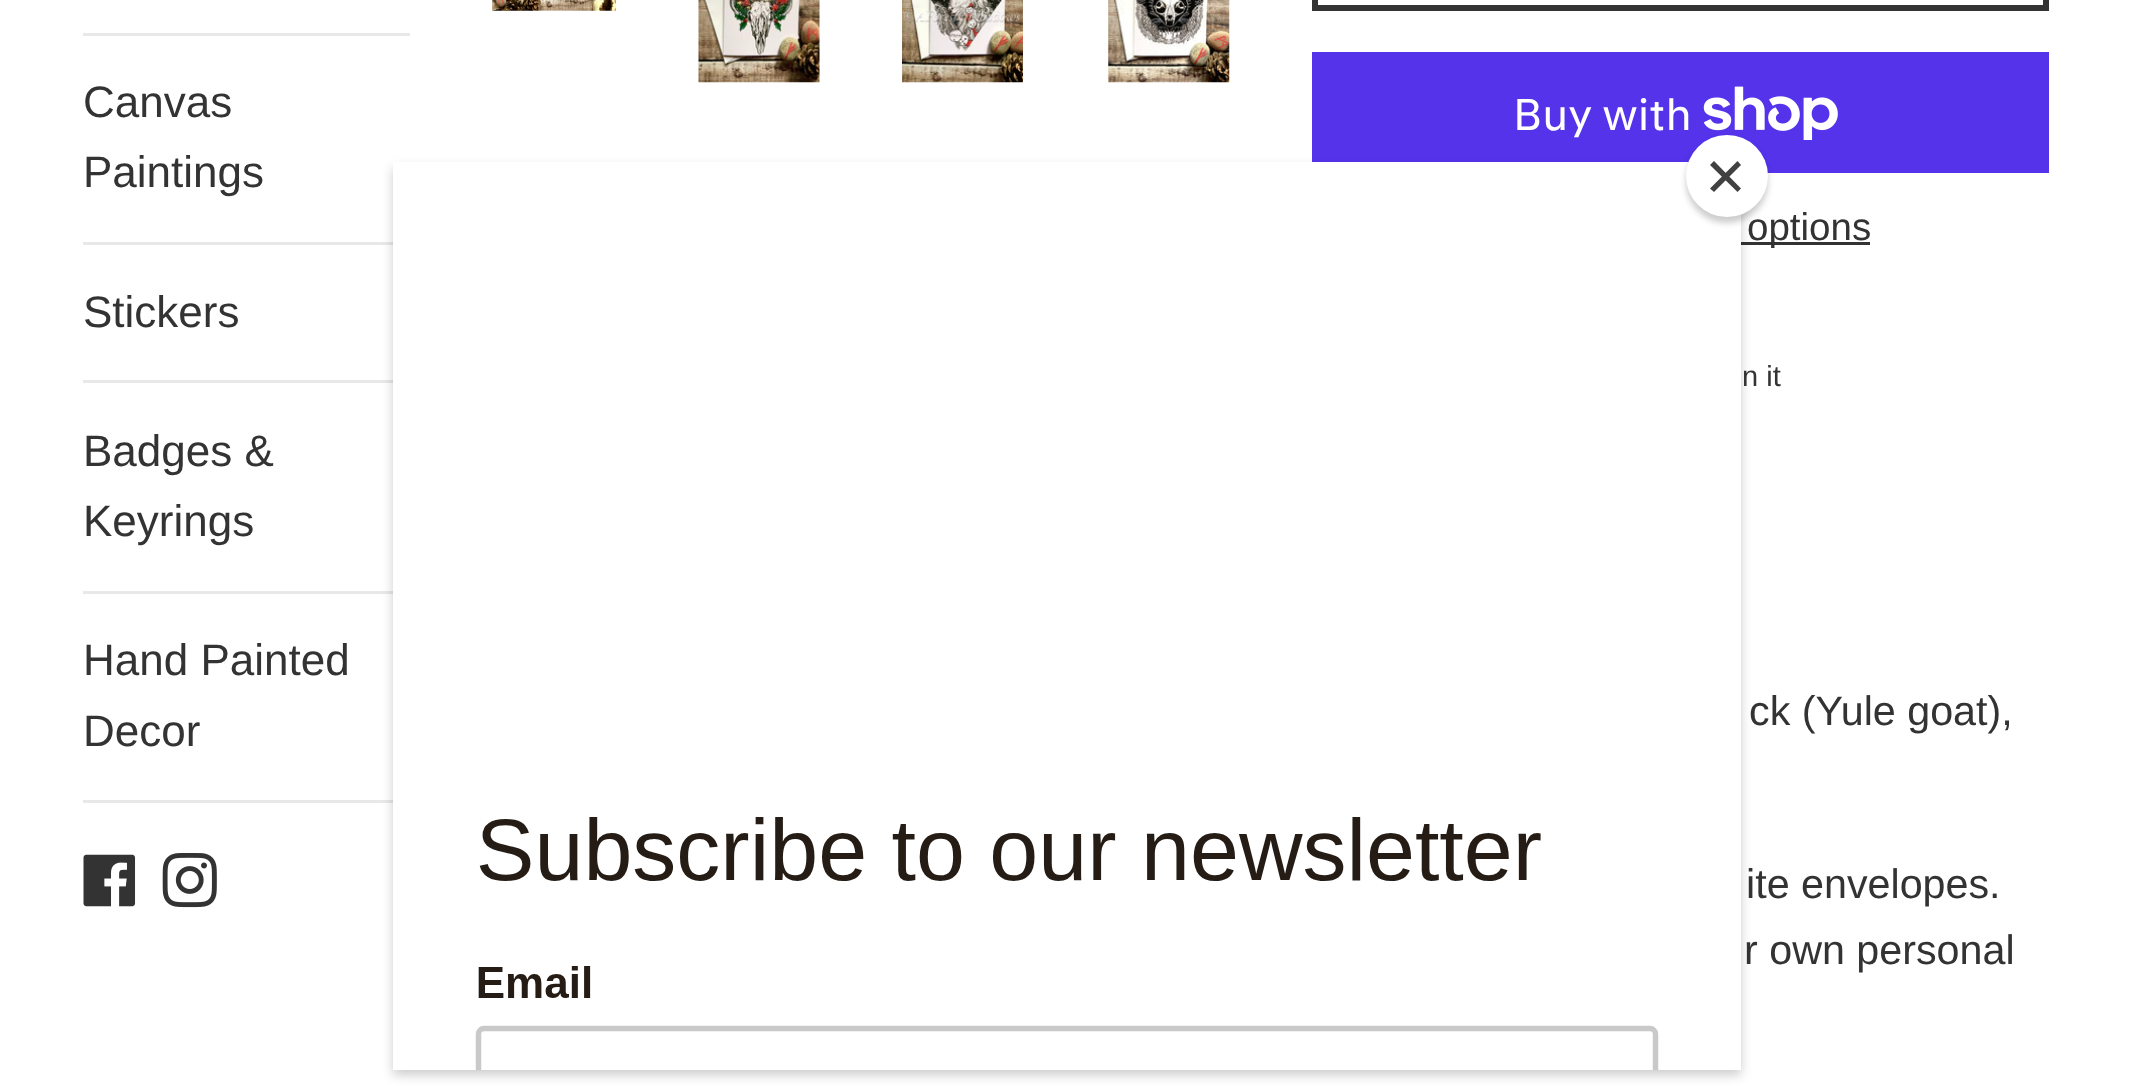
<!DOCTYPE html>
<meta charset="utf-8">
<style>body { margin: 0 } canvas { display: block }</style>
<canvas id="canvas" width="2130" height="1086"></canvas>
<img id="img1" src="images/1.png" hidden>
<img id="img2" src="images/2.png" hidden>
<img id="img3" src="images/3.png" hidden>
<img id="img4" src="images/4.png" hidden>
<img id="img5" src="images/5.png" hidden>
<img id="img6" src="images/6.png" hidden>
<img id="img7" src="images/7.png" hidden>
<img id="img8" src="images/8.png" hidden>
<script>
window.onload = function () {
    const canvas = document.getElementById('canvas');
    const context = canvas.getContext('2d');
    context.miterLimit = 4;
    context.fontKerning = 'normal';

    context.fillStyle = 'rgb(255, 255, 255)';
    context.fillRect(0, 0, 2130, 1086);
    context.fillStyle = 'rgb(232, 232, 232)';
    context.fillRect(83, 33, 327, 3);
    context.fillRect(83, 242, 310, 3);
    context.fillRect(83, 380, 310, 3);
    context.fillRect(83, 591, 310, 3);
    context.fillRect(83, 800, 310, 3);
    context.drawImage(document.getElementById('img1'), 83, 854, 53, 53);
    context.drawImage(document.getElementById('img2'), 162, 853, 55, 55);
    context.drawImage(document.getElementById('img3'), 492, 0, 124, 11);
    context.drawImage(document.getElementById('img4'), 698, 0, 122, 83);
    context.drawImage(document.getElementById('img5'), 902, 0, 121, 83);
    context.drawImage(document.getElementById('img6'), 1108, 0, 122, 83);
    context.strokeStyle = 'rgb(51, 51, 51)';
    context.lineWidth = 6;
    context.strokeRect(1315, -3, 731, 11);
    context.fillStyle = 'rgb(84, 51, 235)';
    context.fillRect(1312, 52, 737, 121);
    context.drawImage(document.getElementById('img7'), 1703, 86, 135, 54);
    context.fillStyle = 'rgb(51, 51, 51)';
    context.fillRect(1741, 242, 129, 3);
    context.fillStyle = 'rgba(0, 0, 0, 0.2)';
    context.filter = 'blur(5.5px)';
    context.beginPath();
    context.rect(393, 168, 1348, 907);
    context.fill();
    context.filter = 'none';
    context.drawImage(document.getElementById('img8'), 393, 162, 1348, 908);
    context.filter = 'blur(3px)';
    context.beginPath();
    context.roundRect(1686, 140, 82, 83, 41);
    context.fill();
    context.filter = 'none';
    context.font = '44px Liberation Sans';
    context.fillStyle = 'rgb(51, 51, 51)';
    context.fillText('Canvas', 83, 117);
    context.fillText('Paintings', 83, 187);
    context.fillText('Stickers', 83, 327);
    context.fillText('Badges &', 83, 466);
    context.fillText('Keyrings', 83, 536);
    context.fillText('Hand Painted', 83, 675);
    context.fillText('Decor', 83, 746);
    context.font = '44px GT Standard';
    context.fillStyle = 'rgb(255, 255, 255)';
    context.fillText('Buy with', 1513, 130);
    context.font = '38.5px Liberation Sans';
    context.fillStyle = 'rgb(51, 51, 51)';
    context.fillText('options', 1747, 240);
    context.font = '29px Liberation Sans';
    context.fillText('n it', 1742, 386);
    context.font = '41.25px Liberation Sans';
    context.fillText('ck (Yule goat),', 1749, 725);
    context.fillText('ite envelopes.', 1746, 898);
    context.fillText('r own personal', 1744, 964);
    context.fillStyle = 'rgb(255, 255, 255)';
    context.beginPath();
    context.arc(1727, 176, 41, 0, 2 * Math.PI);
    context.fill();
    context.fillStyle = 'rgb(65, 65, 65)';
    context.beginPath();
    context.moveTo(1737.5, 161);
    context.lineTo(1741, 165);
    context.lineTo(1714, 192);
    context.lineTo(1710, 188.5);
    context.closePath();
    context.fill();
    context.beginPath();
    context.moveTo(1710, 165);
    context.lineTo(1714, 161);
    context.lineTo(1741, 188.5);
    context.lineTo(1737.5, 192);
    context.closePath();
    context.fill();
};
</script>
